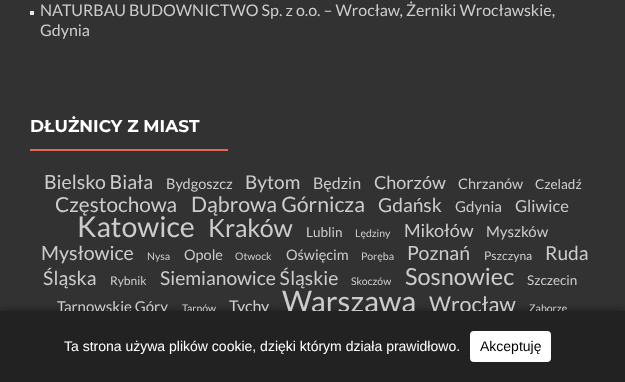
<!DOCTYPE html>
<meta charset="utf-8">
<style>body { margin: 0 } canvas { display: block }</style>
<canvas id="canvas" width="625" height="382"></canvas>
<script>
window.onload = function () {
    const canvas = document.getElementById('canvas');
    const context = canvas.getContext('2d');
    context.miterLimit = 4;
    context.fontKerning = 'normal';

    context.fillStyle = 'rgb(50, 50, 50)';
    context.fillRect(0, 0, 625, 382);
    context.fillStyle = 'rgb(233, 233, 233)';
    context.fillRect(30, 11, 4, 4);
    context.fillStyle = 'rgb(233, 102, 86)';
    context.fillRect(30, 149, 198, 2);
    context.fillStyle = 'rgba(0, 0, 0, 0.3)';
    context.filter = 'blur(3px)';
    context.beginPath();
    context.rect(0, 309, 625, 71);
    context.fill();
    context.filter = 'none';
    context.font = '16px Lato';
    context.fillStyle = 'rgb(204, 204, 204)';
    context.fillText('NATURBAU BUDOWNICTWO Sp. z o.o. – Wrocław, Żerniki Wrocławskie,', 40, 16);
    context.fillText('Gdynia', 40, 36);
    context.font = 'bold 17px Montserrat';
    context.fillStyle = 'rgb(255, 255, 255)';
    context.fillText('DŁUŻNICY Z MIAST', 30, 132);
    context.font = '19.5px Lato';
    context.fillStyle = 'rgb(204, 204, 204)';
    context.fillText('Bielsko Biała', 44, 189);
    context.font = '14.5px Lato';
    context.fillText('Bydgoszcz', 166, 189);
    context.font = '19px Lato';
    context.fillText('Bytom', 245, 189);
    context.font = '16px Lato';
    context.fillText('Będzin', 313, 189);
    context.font = '18px Lato';
    context.fillText('Chorzów', 374, 189);
    context.font = '14.5px Lato';
    context.fillText('Chrzanów', 458, 189);
    context.font = '13.5px Lato';
    context.fillText('Czeladź', 535, 189);
    context.font = '20.75px Lato';
    context.fillText('Częstochowa', 55, 212);
    context.font = '21.25px Lato';
    context.fillText('Dąbrowa Górnicza', 191, 212);
    context.font = '19.25px Lato';
    context.fillText('Gdańsk', 378, 212);
    context.font = '15px Lato';
    context.fillText('Gdynia', 455, 212);
    context.font = '16.5px Lato';
    context.fillText('Gliwice', 515, 212);
    context.font = '28.5px Lato';
    context.fillText('Katowice', 77, 237);
    context.font = '25px Lato';
    context.fillText('Kraków', 208, 237);
    context.font = '13.5px Lato';
    context.fillText('Lublin', 306, 237);
    context.font = '10.5px Lato';
    context.fillText('Lędziny', 355, 237);
    context.font = '18px Lato';
    context.fillText('Mikołów', 404, 237);
    context.font = '15px Lato';
    context.fillText('Myszków', 486, 237);
    context.font = '19.5px Lato';
    context.fillText('Mysłowice', 41, 260);
    context.font = '10.5px Lato';
    context.fillText('Nysa', 147, 260);
    context.font = '14.5px Lato';
    context.fillText('Opole', 184, 260);
    context.font = '10.5px Lato';
    context.fillText('Otwock', 235, 260);
    context.font = '14.5px Lato';
    context.fillText('Oświęcim', 286, 260);
    context.font = '10.5px Lato';
    context.fillText('Poręba', 361, 260);
    context.font = '19.5px Lato';
    context.fillText('Poznań', 407, 260);
    context.font = '12px Lato';
    context.fillText('Pszczyna', 484, 260);
    context.font = '19.25px Lato';
    context.fillText('Ruda', 545, 260);
    context.fillText('Śląska', 43, 285);
    context.font = '12px Lato';
    context.fillText('Rybnik', 110, 285);
    context.font = '19.25px Lato';
    context.fillText('Siemianowice Śląskie', 160, 285);
    context.font = '10.5px Lato';
    context.fillText('Skoczów', 351, 285);
    context.font = '23.5px Lato';
    context.fillText('Sosnowiec', 405, 285);
    context.font = '13.5px Lato';
    context.fillText('Szczecin', 527, 285);
    context.font = '15px Lato';
    context.fillText('Tarnowskie Góry', 57, 312);
    context.font = '10.5px Lato';
    context.fillText('Tarnów', 182, 312);
    context.font = '16px Lato';
    context.fillText('Tychy', 229, 312);
    context.font = '29.5px Lato';
    context.fillText('Warszawa', 282, 312);
    context.font = '21.5px Lato';
    context.fillText('Wrocław', 429, 312);
    context.font = '10.5px Lato';
    context.fillText('Zaborze', 529, 312);
    context.fillStyle = 'rgb(34, 34, 34)';
    context.fillRect(0, 311, 625, 71);
    context.font = '14px Liberation Sans';
    context.fillStyle = 'rgb(255, 255, 255)';
    context.fillText('Ta strona używa plików cookie, dzięki którym działa prawidłowo.', 64, 351);
    context.beginPath();
    context.roundRect(470, 331, 81, 31, 4);
    context.fill();
    context.fillStyle = 'rgb(0, 0, 0)';
    context.fillText('Akceptuję', 480, 351);
};
</script>
